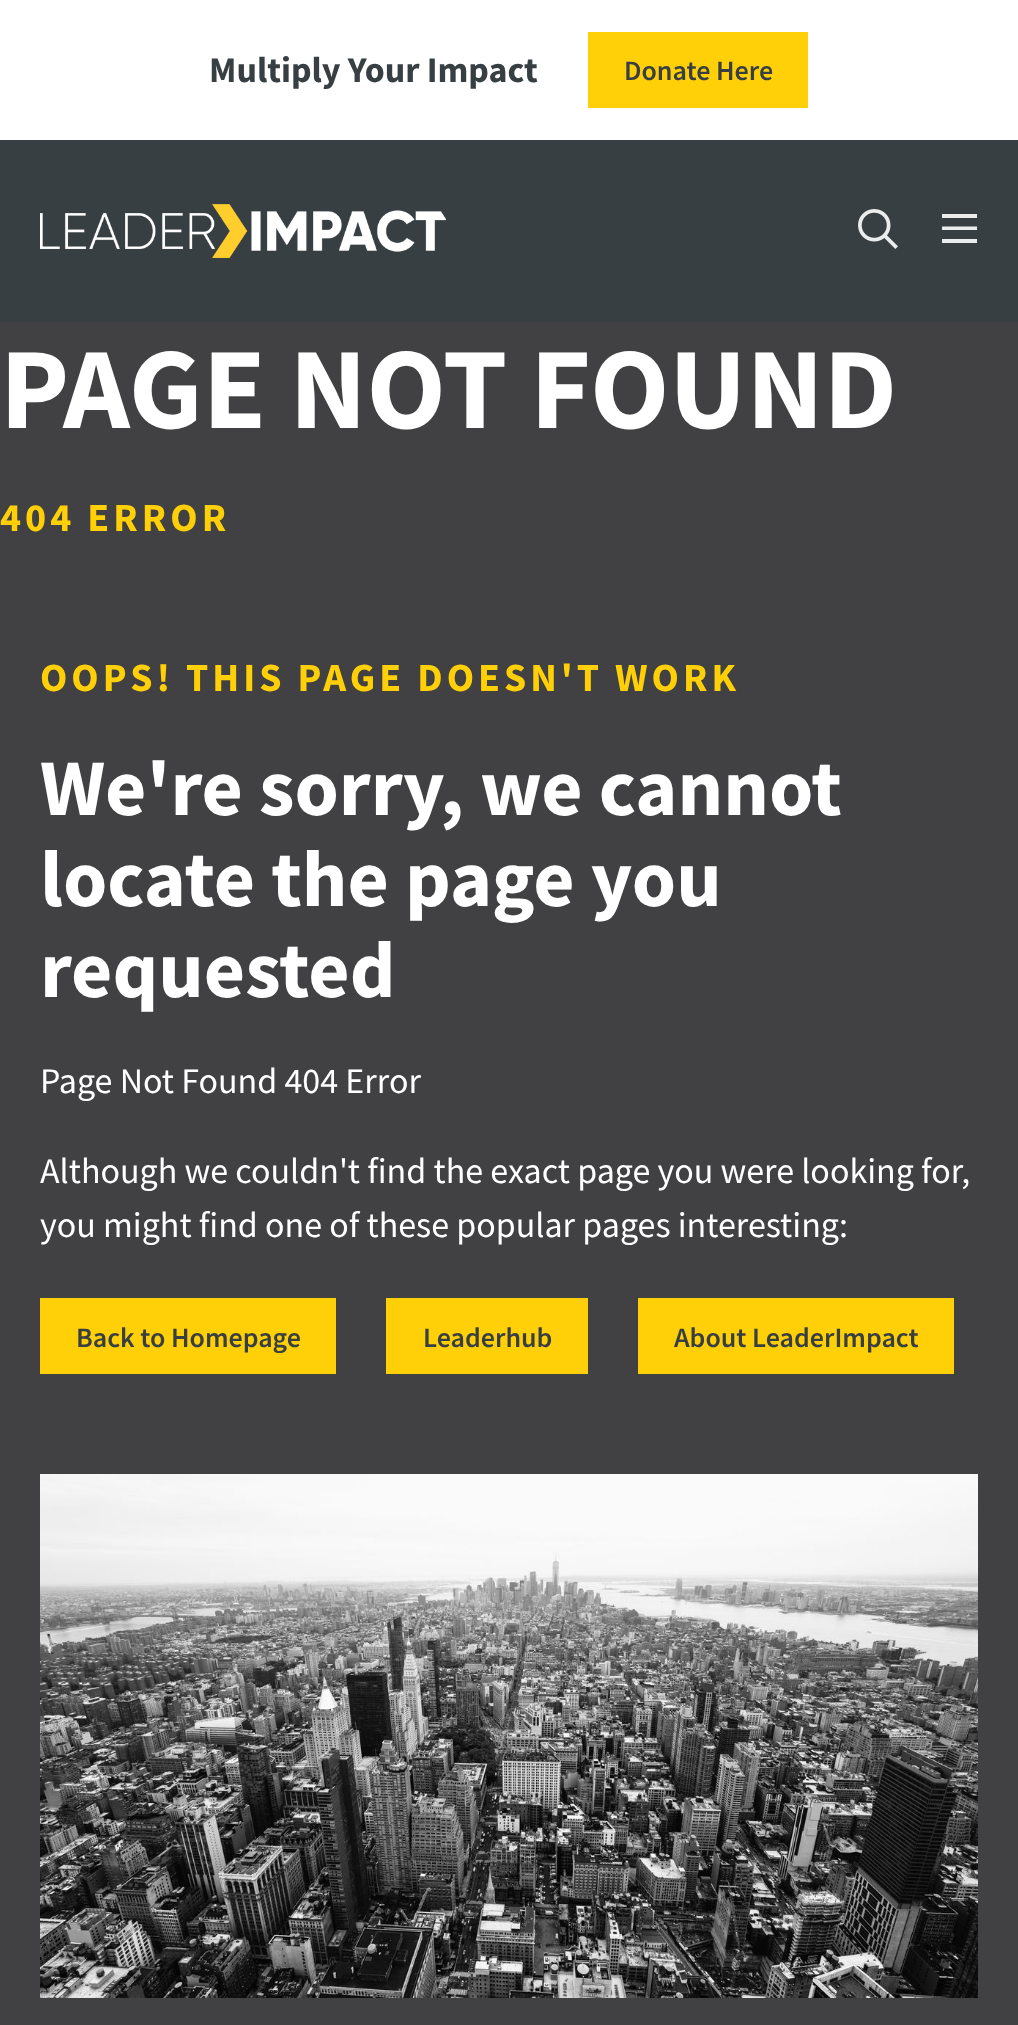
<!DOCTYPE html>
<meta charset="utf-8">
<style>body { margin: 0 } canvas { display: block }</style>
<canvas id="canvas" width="1018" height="2025"></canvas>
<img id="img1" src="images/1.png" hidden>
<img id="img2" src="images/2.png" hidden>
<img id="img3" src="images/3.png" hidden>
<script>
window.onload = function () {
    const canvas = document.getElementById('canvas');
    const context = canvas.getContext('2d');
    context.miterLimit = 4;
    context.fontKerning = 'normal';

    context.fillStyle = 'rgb(65, 64, 66)';
    context.fillRect(0, 0, 1018, 2025);
    context.fillStyle = 'rgb(255, 255, 255)';
    context.fillRect(0, 0, 1018, 140);
    context.fillStyle = 'rgb(255, 207, 7)';
    context.fillRect(588, 32, 220, 76);
    context.fillStyle = 'rgb(56, 63, 67)';
    context.fillRect(0, 140, 1018, 182);
    context.drawImage(document.getElementById('img1'), 40, 204, 406, 54);
    context.drawImage(document.getElementById('img2'), 858, 209, 40, 40);
    context.fillStyle = 'rgb(235, 236, 236)';
    context.beginPath();
    context.moveTo(942, 214);
    context.lineTo(977, 214);
    context.lineTo(977, 218);
    context.lineTo(942, 218);
    context.closePath();
    context.moveTo(942, 226.5);
    context.lineTo(977, 226.5);
    context.lineTo(977, 230);
    context.lineTo(942, 230);
    context.closePath();
    context.moveTo(977, 239);
    context.lineTo(977, 243);
    context.lineTo(942, 243);
    context.lineTo(942, 239);
    context.closePath();
    context.fill();
    context.fillStyle = 'rgb(255, 207, 7)';
    context.fillRect(40, 1298, 296, 76);
    context.fillRect(386, 1298, 202, 76);
    context.fillRect(638, 1298, 316, 76);
    context.drawImage(document.getElementById('img3'), 40, 1474, 938, 524);
    context.font = 'bold 36px Source Sans Pro';
    context.fillStyle = 'rgb(56, 63, 67)';
    context.fillText('Multiply Your Impact', 209, 82);
    context.font = '600 28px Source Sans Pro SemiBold';
    context.fillText('Donate Here', 624, 80);
    context.font = 'bold 116px Source Sans Pro';
    context.fillStyle = 'rgb(255, 255, 255)';
    context.fillText('PAGE NOT FOUND', 0, 428);
    context.letterSpacing = '4px';
    context.font = 'bold 40px Source Sans Pro';
    context.fillStyle = 'rgb(255, 207, 7)';
    context.fillText('404 ERROR', 0, 531);
    context.fillText('OOPS! THIS PAGE DOESN\'T WORK', 40, 691);
    context.letterSpacing = '0px';
    context.font = 'bold 80px Source Sans Pro';
    context.fillStyle = 'rgb(255, 255, 255)';
    context.fillText('We\'re sorry, we cannot', 40, 815);
    context.fillText('locate the page you', 40, 906);
    context.fillText('requested', 40, 997);
    context.font = '36px Source Sans Pro';
    context.fillText('Page Not Found 404 Error', 40, 1093);
    context.fillText('Although we couldn\'t find the exact page you were looking for,', 40, 1183);
    context.fillText('you might find one of these popular pages interesting:', 40, 1237);
    context.font = '600 28px Source Sans Pro SemiBold';
    context.fillStyle = 'rgb(56, 63, 67)';
    context.fillText('Back to Homepage', 76, 1347);
    context.fillText('Leaderhub', 423, 1347);
    context.fillText('About LeaderImpact', 674, 1347);
};
</script>
